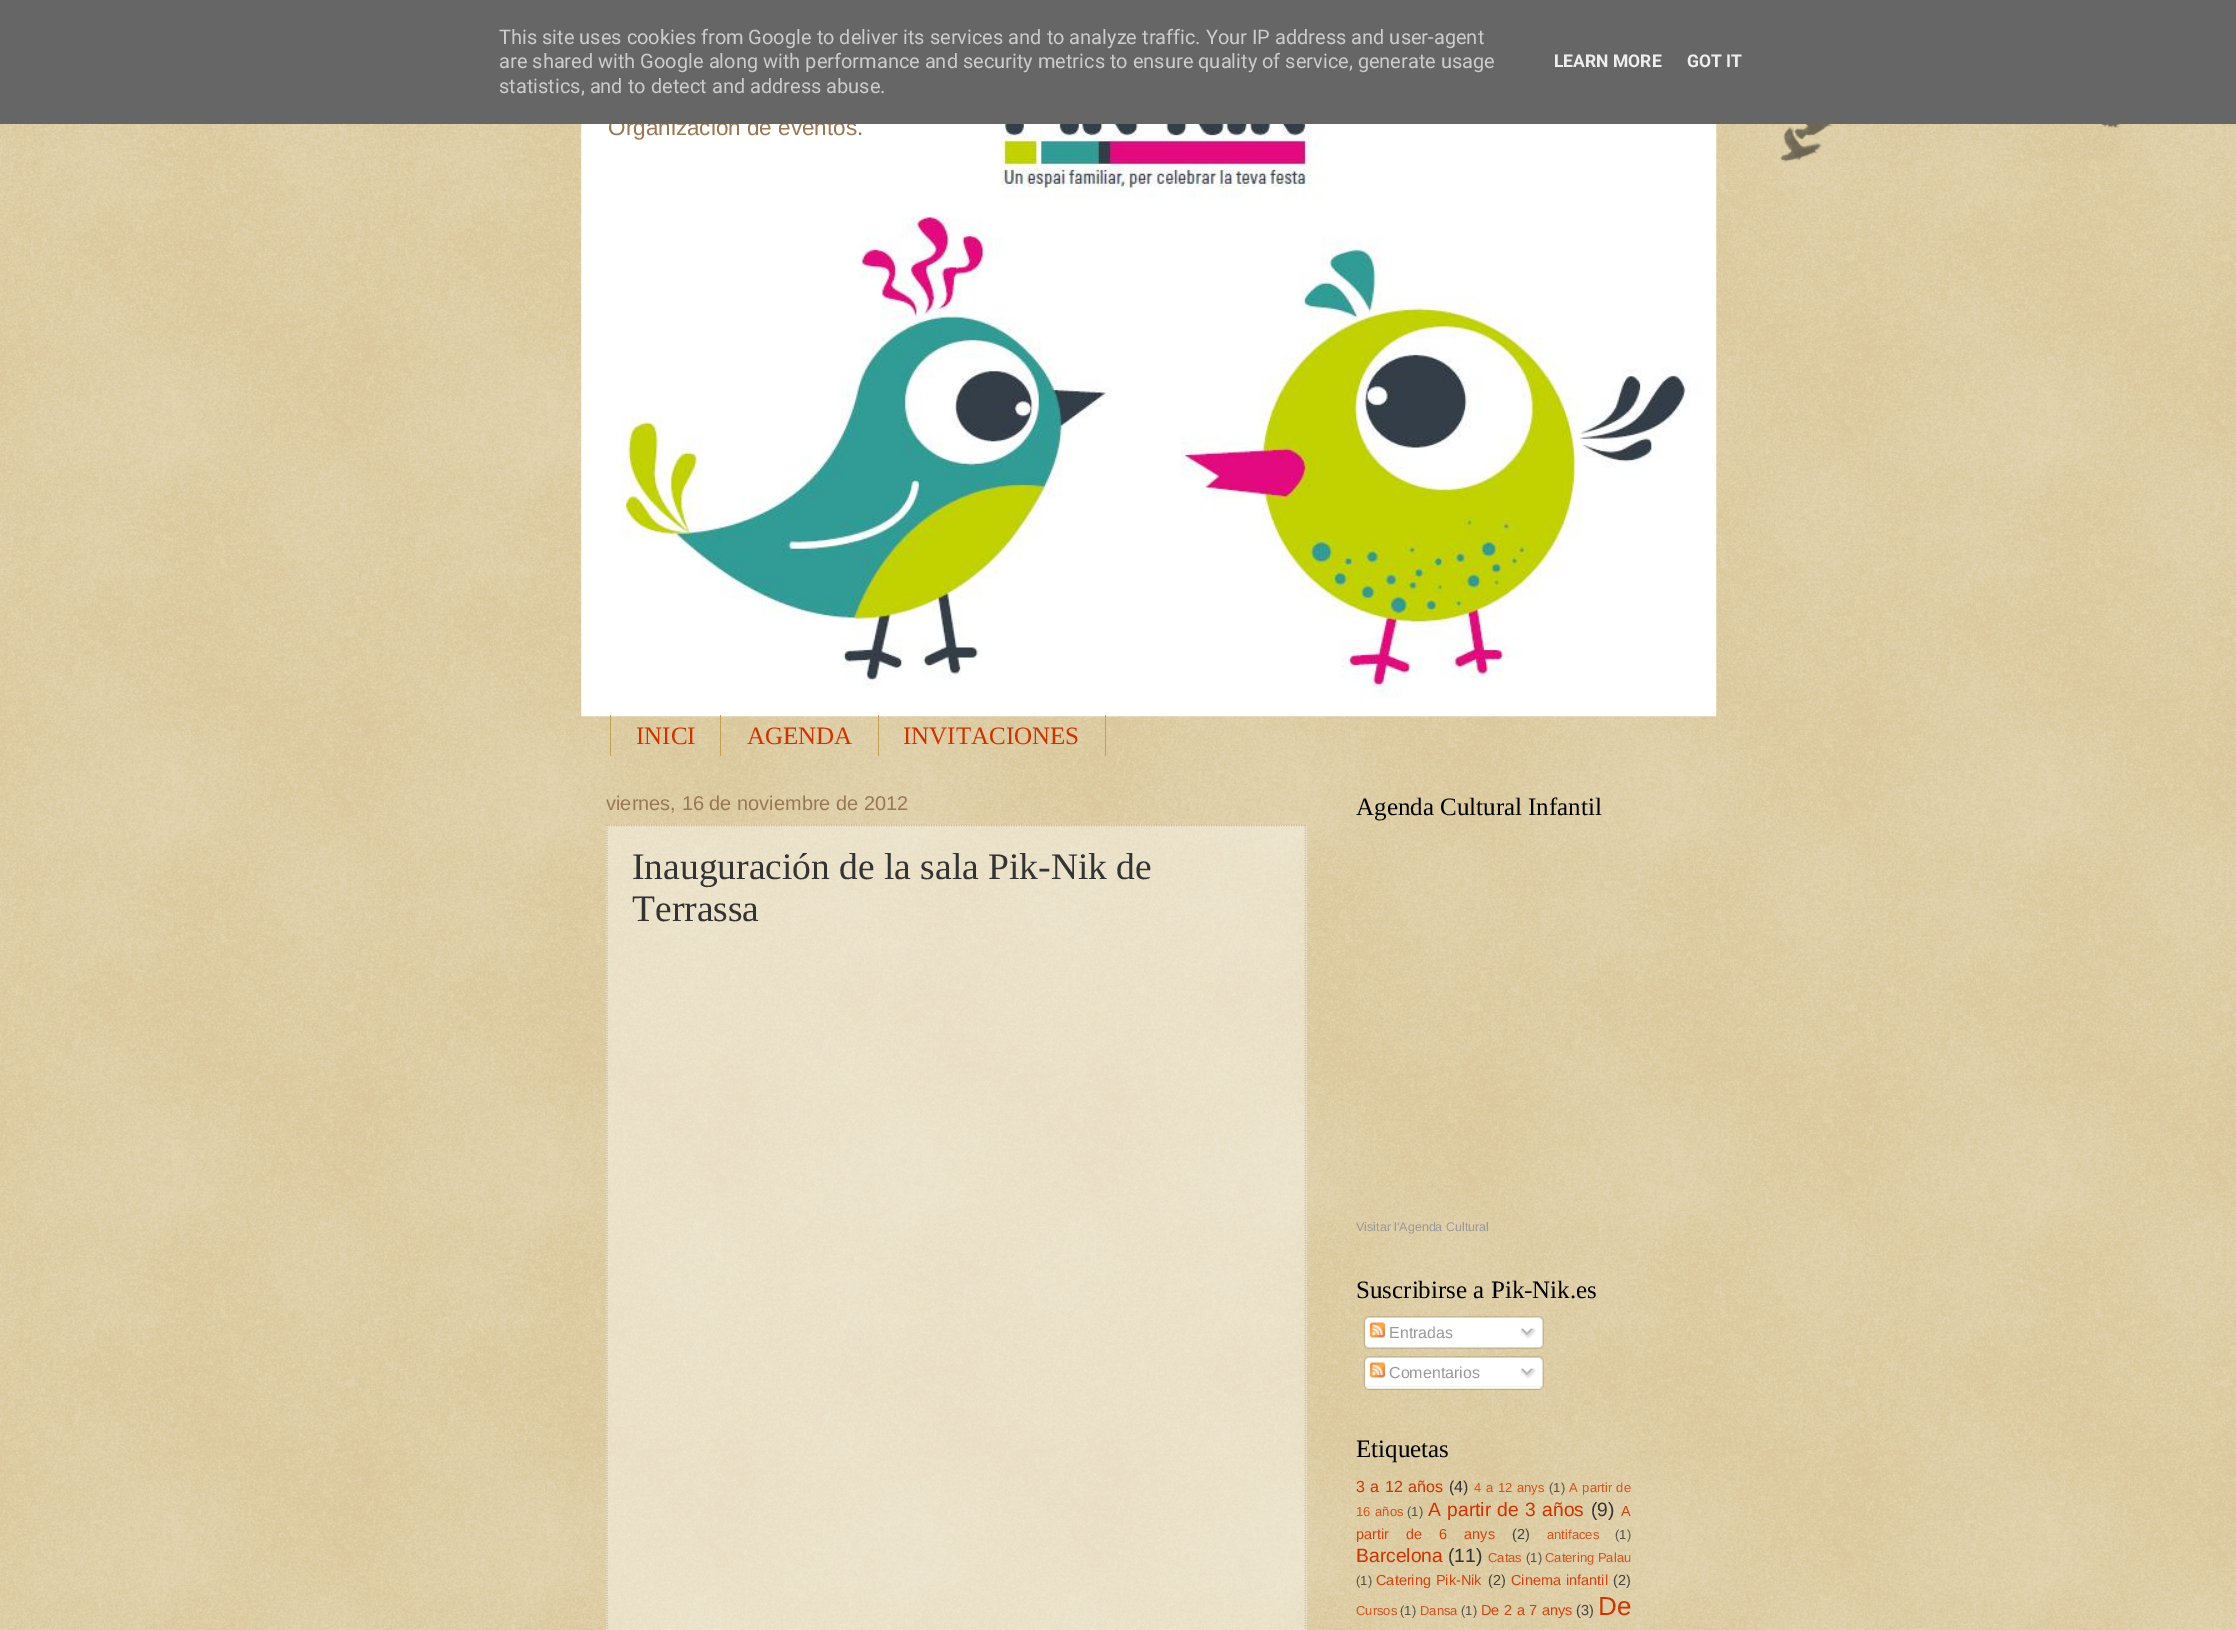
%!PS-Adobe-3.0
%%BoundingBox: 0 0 2236 1630
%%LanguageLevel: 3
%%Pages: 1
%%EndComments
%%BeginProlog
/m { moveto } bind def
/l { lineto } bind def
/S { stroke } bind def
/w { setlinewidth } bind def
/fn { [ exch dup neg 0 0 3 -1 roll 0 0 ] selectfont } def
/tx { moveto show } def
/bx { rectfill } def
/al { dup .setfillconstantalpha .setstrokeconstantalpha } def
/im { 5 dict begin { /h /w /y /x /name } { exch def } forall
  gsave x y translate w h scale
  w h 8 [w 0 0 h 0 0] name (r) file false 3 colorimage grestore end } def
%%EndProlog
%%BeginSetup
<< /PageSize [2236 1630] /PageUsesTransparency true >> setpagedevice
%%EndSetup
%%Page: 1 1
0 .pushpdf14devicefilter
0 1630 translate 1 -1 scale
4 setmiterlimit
0.753 0.631 0.329 setrgbcolor
0 0 2236 1630 bx
(image0.raw) 0 124 2236 1506 im
(image1.raw) 581 124 1136 593 im
/LiberationSans-Regular 22.5 fn
0.6 0.467 0.333 setrgbcolor
(Organización de eventos.) 608 135 tx
0.4 setgray
0 0 2236 124 bx
/Roboto-Regular 20 fn
0.8 setgray
(This site uses cookies from Google to deliver its services and to analyze traffic. Your IP address and user-agent) 499 44 tx
(are shared with Google along with performance and security metrics to ensure quality of service, generate usage) 499 68 tx
(statistics, and to detect and address abuse.) 499 93 tx
/Roboto-Bold 17.5 fn
0.933 setgray
(LEARN MORE) 1554 67 tx
(GOT IT) 1687 67 tx
0.753 0.631 0.329 setrgbcolor
720 715 1 41 bx
610 715 1 41 bx
/LiberationSerif-Regular 25 fn
0.8 0.2 0 setrgbcolor
(INICI) 636 744 tx
0.753 0.631 0.329 setrgbcolor
878 715 1 41 bx
0.8 0.2 0 setrgbcolor
(AGENDA) 747 744 tx
0.753 0.631 0.329 setrgbcolor
1105 715 1 41 bx
0.8 0.2 0 setrgbcolor
(INVITACIONES) 903 744 tx
/LiberationSans-Regular 20 fn
0.6 0.467 0.333 setrgbcolor
(viernes, 16 de noviembre de 2012) 606 810 tx
0.4 al
1 setgray
606 825 701 805 bx
1 al
0.8 0.733 0.6 setrgbcolor
1.2 w
[1.25 1.25] 0 setdash
606 825.5 m 1306 825.5 l S
1305.5 825 m 1305.5 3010 l S
607 825 m 607 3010 l S
/LiberationSerif-Regular 37.5 fn
0.2 setgray
(Inauguración de la sala Pik-Nik de) 632 879 tx
(Terrassa) 632 921 tx
/LiberationSerif-Regular 25 fn
0 setgray
(Agenda Cultural Infantil) 1356 815 tx
/LiberationSans-Regular 12.5 fn
0.6 setgray
(Visitar l'Agenda Cultural) 1356 1231 tx
/LiberationSerif-Regular 25 fn
0 setgray
(Suscribirse a Pik-Nik.es) 1356 1298 tx
(image2.raw) 1363 1316 181 29 im
(image3.raw) 1370 1322 15 16 im
/LiberationSans-Regular 16 fn
0.6 setgray
(Entradas) 1389 1338 tx
(image4.raw) 1520 1328 16 11 im
(image5.raw) 1364 1345 180 4 im
(image6.raw) 1363 1356 181 31 im
(image3.raw) 1370 1362 15 16 im
(Comentarios) 1389 1378 tx
(image4.raw) 1520 1368 16 11 im
(image7.raw) 1364 1386 180 4 im
/LiberationSerif-Regular 25 fn
0 setgray
(Etiquetas) 1356 1457 tx
/LiberationSans-Regular 16 fn
0.8 0.2 0 setrgbcolor
1356 1492 m 1 0 32 (3 a 12 años) widthshow
0.2 setgray
(\(4\)) 1449 1492 tx
/LiberationSans-Regular 13 fn
0.812 0.322 0.125 setrgbcolor
1474 1492 m 1 0 32 (4 a 12 anys) widthshow
0.333 0.322 0.29 setrgbcolor
(\(1\)) 1549 1492 tx
0.812 0.322 0.125 setrgbcolor
1569 1492 m 1 0 32 (A partir de) widthshow
1356 1516 m 1 0 32 (16 años) widthshow
0.333 0.322 0.29 setrgbcolor
(\(1\)) 1407 1516 tx
/LiberationSans-Regular 19.25 fn
0.8 0.2 0 setrgbcolor
1428 1516 m 1 0 32 (A partir de 3 años) widthshow
0.2 setgray
(\(9\)) 1591 1516 tx
/LiberationSans-Regular 14.5 fn
0.808 0.263 0.067 setrgbcolor
(A) 1621 1516 tx
1356 1539 m 13 0 32 (partir de 6 anys) widthshow
0.267 0.259 0.243 setrgbcolor
(\(2\)) 1512 1539 tx
/LiberationSans-Regular 13 fn
0.812 0.322 0.125 setrgbcolor
(antifaces) 1547 1539 tx
0.333 0.322 0.29 setrgbcolor
(\(1\)) 1615 1539 tx
/LiberationSans-Regular 19.25 fn
0.8 0.2 0 setrgbcolor
(Barcelona) 1356 1562 tx
0.2 setgray
(\(11\)) 1448 1562 tx
/LiberationSans-Regular 13 fn
0.812 0.322 0.125 setrgbcolor
(Catas) 1488 1562 tx
0.333 0.322 0.29 setrgbcolor
(\(1\)) 1526 1562 tx
0.812 0.322 0.125 setrgbcolor
(Catering Palau) 1545 1562 tx
0.333 0.322 0.29 setrgbcolor
(\(1\)) 1356 1585 tx
/LiberationSans-Regular 14.5 fn
0.808 0.263 0.067 setrgbcolor
1376 1585 m 1 0 32 (Catering Pik-Nik) widthshow
0.267 0.259 0.243 setrgbcolor
(\(2\)) 1488 1585 tx
0.808 0.263 0.067 setrgbcolor
1511 1585 m 1 0 32 (Cinema infantil) widthshow
0.267 0.259 0.243 setrgbcolor
(\(2\)) 1613 1585 tx
/LiberationSans-Regular 13 fn
0.812 0.322 0.125 setrgbcolor
(Cursos) 1356 1615 tx
0.333 0.322 0.29 setrgbcolor
(\(1\)) 1400 1615 tx
0.812 0.322 0.125 setrgbcolor
(Dansa) 1420 1615 tx
0.333 0.322 0.29 setrgbcolor
(\(1\)) 1461 1615 tx
/LiberationSans-Regular 14.5 fn
0.808 0.263 0.067 setrgbcolor
1481 1615 m 0.5 0 32 (De 2 a 7 anys) widthshow
0.267 0.259 0.243 setrgbcolor
(\(3\)) 1576 1615 tx
/LiberationSans-Regular 26 fn
0.8 0.2 0 setrgbcolor
(De) 1598 1615 tx
(image8.raw) 1780 124 340 38 im
.poppdf14devicefilter showpage
%%EOF
